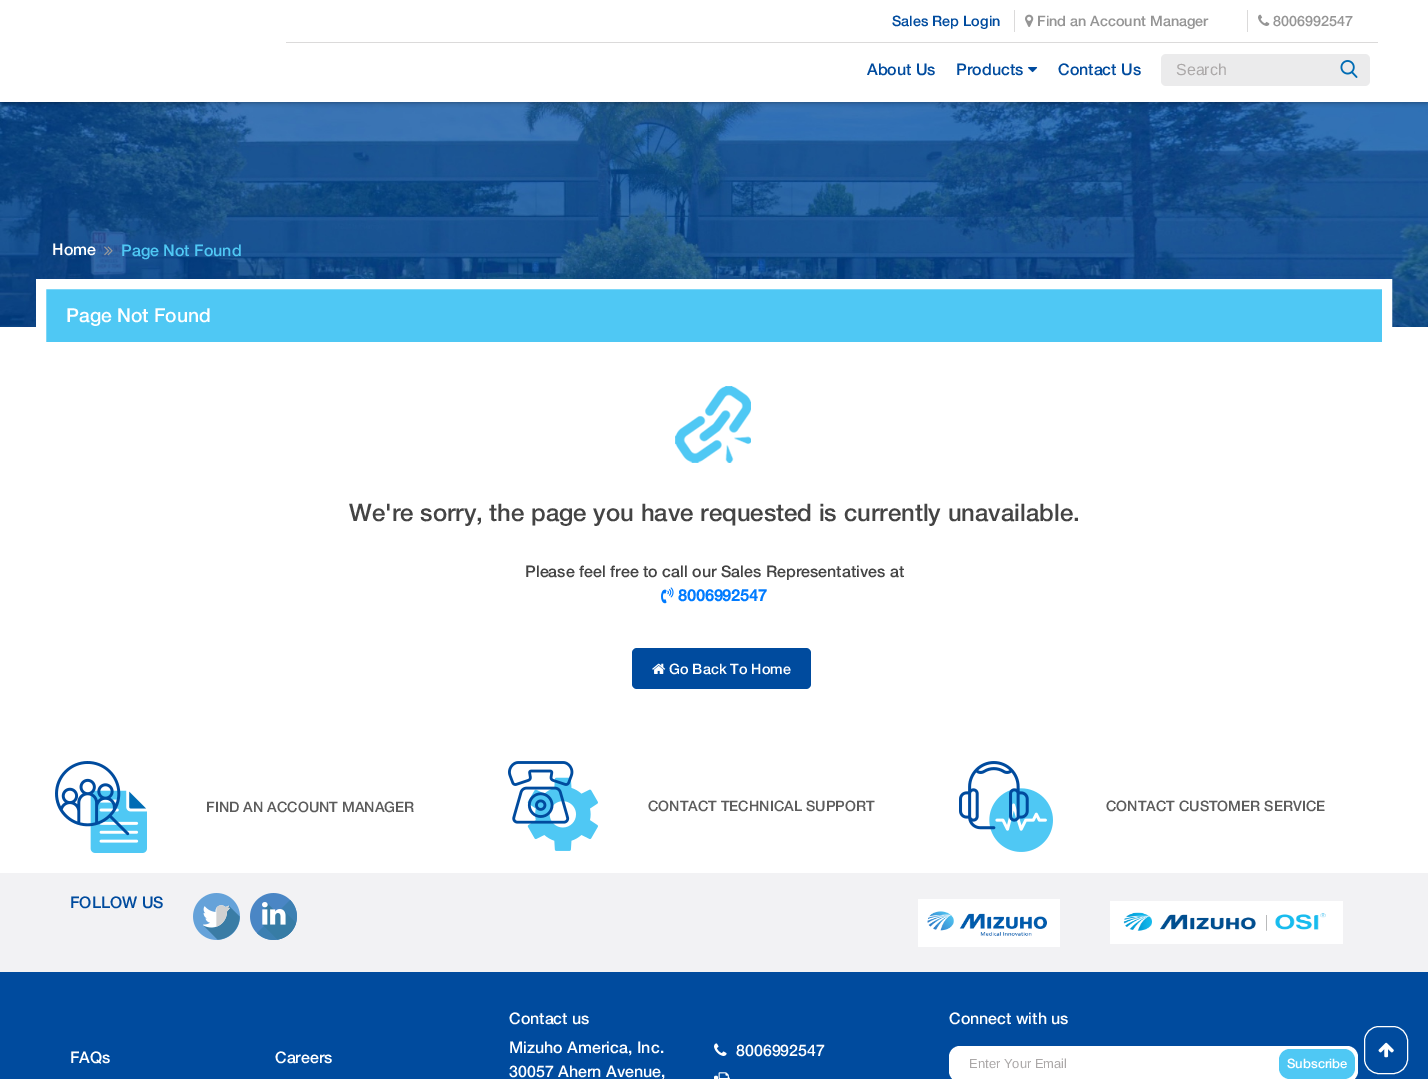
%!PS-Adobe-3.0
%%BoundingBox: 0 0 1428 1079
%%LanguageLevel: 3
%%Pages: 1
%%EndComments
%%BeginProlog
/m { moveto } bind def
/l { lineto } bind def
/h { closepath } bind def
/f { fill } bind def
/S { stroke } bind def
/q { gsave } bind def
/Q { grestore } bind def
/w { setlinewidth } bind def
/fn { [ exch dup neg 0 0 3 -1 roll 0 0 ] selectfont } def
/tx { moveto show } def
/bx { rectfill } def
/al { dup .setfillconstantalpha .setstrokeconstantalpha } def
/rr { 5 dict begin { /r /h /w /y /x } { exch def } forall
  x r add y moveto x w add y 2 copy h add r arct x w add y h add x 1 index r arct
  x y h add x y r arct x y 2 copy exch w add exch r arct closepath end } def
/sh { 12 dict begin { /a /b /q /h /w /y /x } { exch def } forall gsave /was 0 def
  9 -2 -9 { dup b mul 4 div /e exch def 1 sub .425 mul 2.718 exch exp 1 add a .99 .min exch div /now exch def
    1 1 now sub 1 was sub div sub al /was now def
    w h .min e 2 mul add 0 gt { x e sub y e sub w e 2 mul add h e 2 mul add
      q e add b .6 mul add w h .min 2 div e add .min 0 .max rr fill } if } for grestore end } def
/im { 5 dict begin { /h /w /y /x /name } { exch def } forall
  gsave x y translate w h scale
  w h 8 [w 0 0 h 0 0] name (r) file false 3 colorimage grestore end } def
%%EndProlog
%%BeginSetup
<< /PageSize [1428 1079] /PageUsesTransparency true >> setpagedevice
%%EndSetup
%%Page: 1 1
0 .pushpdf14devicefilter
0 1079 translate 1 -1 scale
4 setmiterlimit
1 setgray
0 0 1428 1079 bx
(image4.raw) 0 102 1428 225 im
0 setgray
1 2 1426 100 0 2.5 0.44 sh
1 setgray
0 0 1428 102 bx
/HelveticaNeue-Medium 14.4 fn
0 0.294 0.62 setrgbcolor
(Sales Rep Login) 892 26 tx
0.859 0.855 0.855 setrgbcolor
1014 10 1 22 bx
(image0.raw) 1025 14 9 13 im
0.584 setgray
(Find an Account Manager) 1037 26 tx
0.859 0.855 0.855 setrgbcolor
1247 10 1 22 bx
(image1.raw) 1258 14 12 12 im
0.584 setgray
(8006992547) 1273 26 tx
0.859 0.855 0.855 setrgbcolor
286 42 1092 1 bx
/HelveticaNeue-Medium 16 fn
0 0.294 0.62 setrgbcolor
(About Us) 867 75 tx
(Products) 956 75 tx
(image2.raw) 1028 67 10 6 im
(Contact Us) 1058 75 tx
0.922 0.922 0.925 setrgbcolor
1161 54 209 32 5 rr f
/LiberationSans-Regular 16 fn
0.671 0.659 0.659 setrgbcolor
(Search) 1176 75 tx
(image3.raw) 1340 60 18 18 im
/HelveticaNeue-Medium 16 fn
1 setgray
(Home) 52 255 tx
(image5.raw) 104 246 9 10 im
0.31 0.784 0.957 setrgbcolor
(Page Not Found) 121 256 tx
41 284 m 1387 284 l 1387 347 l 41 347 l h q f Q
1 setgray
10 w
S
/HelveticaNeue-Medium 19.25 fn
(Page Not Found) 66 322 tx
(image6.raw) 675 386 76 77 im
/HelveticaNeue-Medium 24 fn
0.267 setgray
(We're sorry, the page you have requested is currently unavailable.) 349 521 tx
/HelveticaNeue-Medium 16 fn
(Please feel free to call our Sales Representatives at) 525 577 tx
(image7.raw) 661 587 13 17 im
/HelveticaNeue-Bold 16 fn
0 0.482 1 setrgbcolor
(8006992547) 678 601 tx
0 0.294 0.62 setrgbcolor
632 648 179 41 5 rr f
(image8.raw) 652 663 14 11 im
/HelveticaNeue-Medium 14.4 fn
1 setgray
(Go Back To Home) 669 674 tx
(image9.raw) 55 761 92 92 im
0.361 setgray
(FIND AN ACCOUNT MANAGER) 206 812 tx
(image10.raw) 508 761 90 90 im
(CONTACT TECHNICAL SUPPORT) 648 811 tx
(image11.raw) 959 761 94 91 im
(CONTACT CUSTOMER SERVICE) 1106 811 tx
0.949 0.949 0.957 setrgbcolor
0 873 1428 99 bx
/HelveticaNeue-Medium 16 fn
0 0.294 0.62 setrgbcolor
(FOLLOW US) 70 908 tx
(image12.raw) 193 893 47 47 im
(image13.raw) 250 893 47 47 im
(image14.raw) 918 899 142 48 im
(image15.raw) 1110 901 233 43 im
0 972 1428 107 bx
1 setgray
(FAQs) 70 1063 tx
(Careers) 275 1063 tx
(Contact us) 509 1024 tx
(Mizuho America, Inc.) 509 1053 tx
(30057 Ahern Avenue,) 509 1077 tx
(image16.raw) 714 1043 13 13 im
(8006992547) 736 1056 tx
(image17.raw) 714 1072 16 7 im
(Connect with us) 949 1024 tx
949 1046 409 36 11 rr f
/LiberationSans-Regular 13 fn
0.671 0.659 0.659 setrgbcolor
(Enter Your Email) 969 1068 tx
0.31 0.784 0.957 setrgbcolor
1279 1049 76 30 11 rr f
/HelveticaNeue-Medium 13 fn
1 setgray
(Subscribe) 1287 1068 tx
1 w
1364.5 1026.5 43 47 14.5 rr S
(image18.raw) 1378 1042 16 16 im
.poppdf14devicefilter showpage
%%EOF
